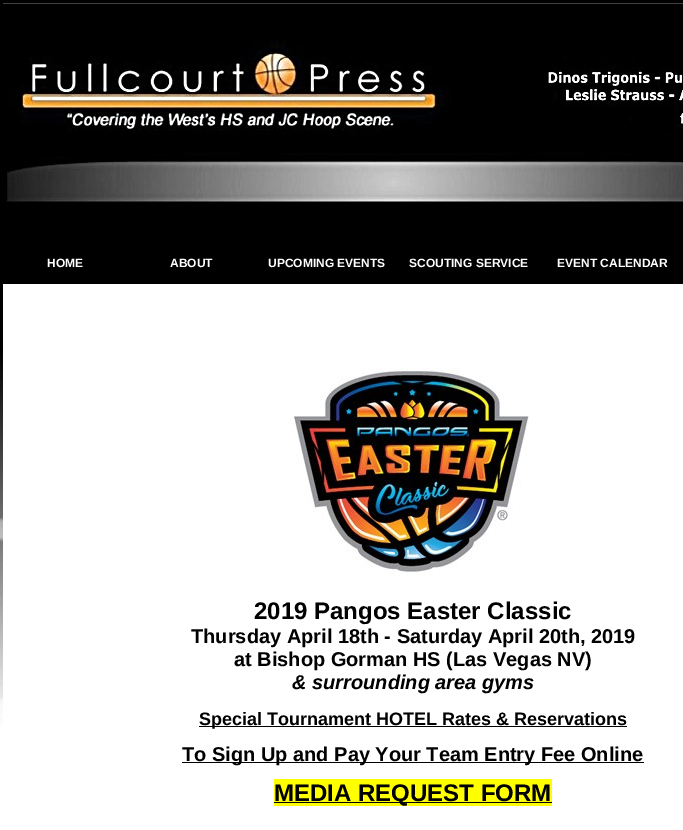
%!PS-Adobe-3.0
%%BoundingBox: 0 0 683 830
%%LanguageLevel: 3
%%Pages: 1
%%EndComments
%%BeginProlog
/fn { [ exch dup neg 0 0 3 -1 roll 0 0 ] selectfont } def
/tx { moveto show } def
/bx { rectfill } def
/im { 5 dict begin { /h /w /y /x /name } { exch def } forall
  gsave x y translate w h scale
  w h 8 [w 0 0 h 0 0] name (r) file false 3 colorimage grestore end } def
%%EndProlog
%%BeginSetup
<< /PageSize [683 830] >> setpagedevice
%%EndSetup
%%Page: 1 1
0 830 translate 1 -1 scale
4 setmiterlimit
1 setgray
0 0 683 830 bx
(image0.raw) 0 0 683 830 im
(image1.raw) 3 3 680 199 im
/LiberationSans-Bold 12 fn
(HOME) 47 267 tx
(ABOUT) 170 267 tx
(UPCOMING EVENTS) 268 267 tx
(SCOUTING SERVICE) 409 267 tx
(EVENT CALENDAR) 557 267 tx
3 284 680 546 bx
(image2.raw) 293 368 236 208 im
/LiberationSans-Bold 24 fn
0 setgray
(2019 Pangos Easter Classic) 254 619 tx
/LiberationSans-Bold 20 fn
(Thursday April 18th - Saturday April 20th, 2019) 191 643 tx
(at Bishop Gorman HS \(Las Vegas NV\)) 234 666 tx
/LiberationSans-BoldItalic 20 fn
(& surrounding area gyms) 292 689 tx
199 726 428 1 bx
/LiberationSans-Bold 18 fn
(Special Tournament HOTEL Rates & Reservations) 199 725 tx
182 762 462 1 bx
/LiberationSans-Bold 20 fn
(To Sign Up and Pay Your Team Entry Fee Online) 182 761 tx
1 1 0 setrgbcolor
274 779 278 27 bx
0 setgray
274 802 278 1 bx
/LiberationSans-Bold 24 fn
(MEDIA REQUEST FORM) 274 801 tx
showpage
%%EOF
